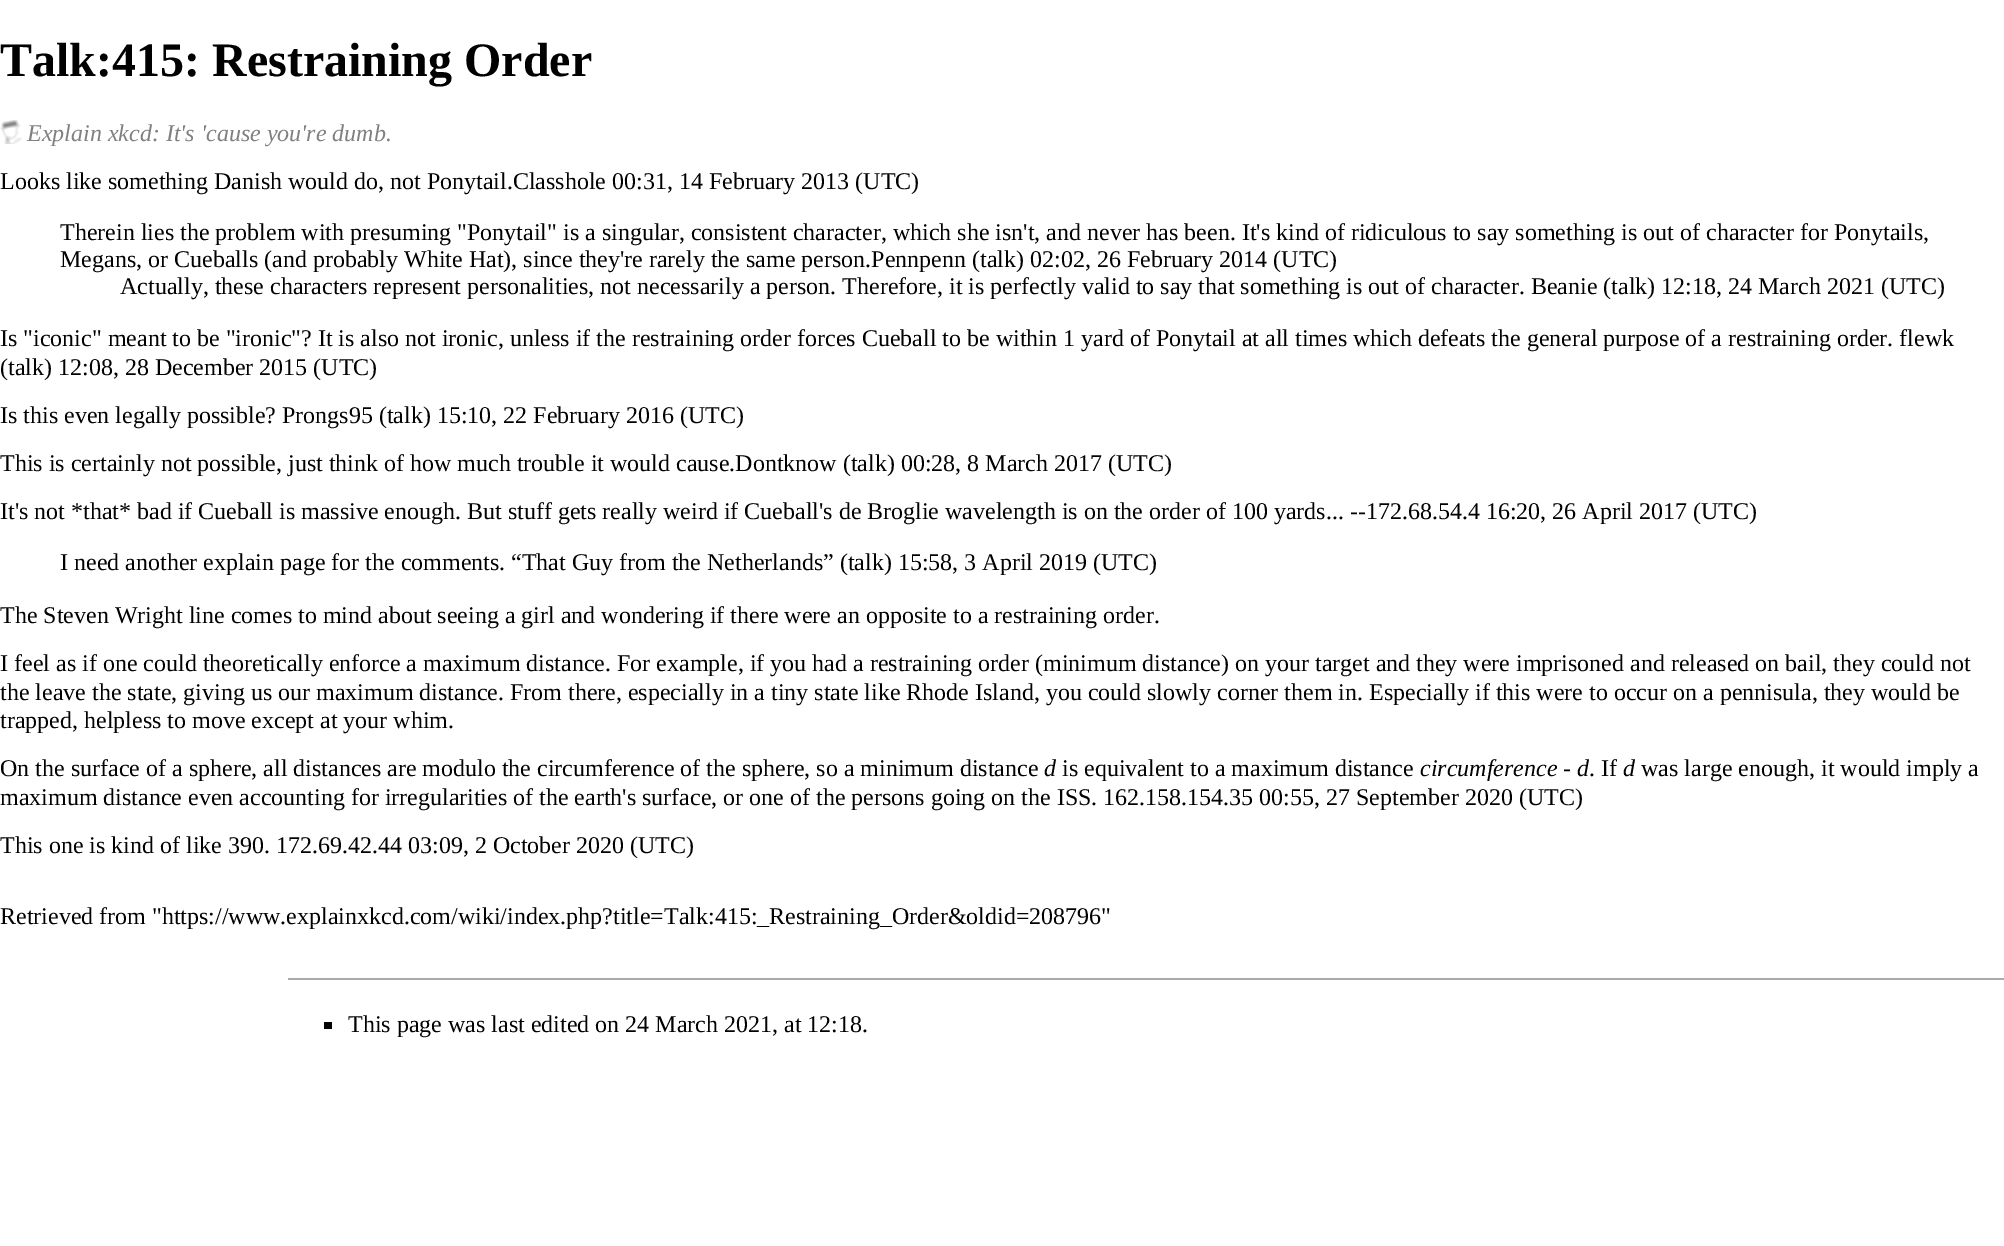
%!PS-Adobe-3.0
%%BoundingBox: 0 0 2004 1246
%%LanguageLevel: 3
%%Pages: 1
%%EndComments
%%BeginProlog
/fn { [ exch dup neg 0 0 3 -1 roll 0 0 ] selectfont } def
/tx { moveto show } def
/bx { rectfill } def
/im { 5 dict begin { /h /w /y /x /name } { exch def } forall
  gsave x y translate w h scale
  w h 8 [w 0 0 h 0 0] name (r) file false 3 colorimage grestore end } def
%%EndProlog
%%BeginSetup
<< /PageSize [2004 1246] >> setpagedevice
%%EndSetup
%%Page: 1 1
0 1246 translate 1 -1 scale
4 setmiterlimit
1 setgray
0 0 2004 1246 bx
/LiberationSerif-Bold 48 fn
0 setgray
(Talk:415: Restraining Order) 0 76 tx
(image0.raw) 0 120 23 24 im
/LiberationSerif-Italic 24 fn
0.502 setgray
(Explain xkcd: It's 'cause you're dumb.) 27 141 tx
/LiberationSerif-Regular 24 fn
0 setgray
(Looks like something Danish would do, not Ponytail.Classhole 00:31, 14 February 2013 \(UTC\)) 0 189 tx
(Therein lies the problem with presuming "Ponytail" is a singular, consistent character, which she isn't, and never has been. It's kind of ridiculous to say something is out of character for Ponytails,) 60 240 tx
(Megans, or Cueballs \(and probably White Hat\), since they're rarely the same person.Pennpenn \(talk\) 02:02, 26 February 2014 \(UTC\)) 60 267 tx
(Actually, these characters represent personalities, not necessarily a person. Therefore, it is perfectly valid to say that something is out of character. Beanie \(talk\) 12:18, 24 March 2021 \(UTC\)) 120 294 tx
(Is "iconic" meant to be "ironic"? It is also not ironic, unless if the restraining order forces Cueball to be within 1 yard of Ponytail at all times which defeats the general purpose of a restraining order. flewk) 0 346 tx
(\(talk\) 12:08, 28 December 2015 \(UTC\)) 0 375 tx
(Is this even legally possible? Prongs95 \(talk\) 15:10, 22 February 2016 \(UTC\)) 0 423 tx
(This is certainly not possible, just think of how much trouble it would cause.Dontknow \(talk\) 00:28, 8 March 2017 \(UTC\)) 0 471 tx
(It's not *that* bad if Cueball is massive enough. But stuff gets really weird if Cueball's de Broglie wavelength is on the order of 100 yards... --172.68.54.4 16:20, 26 April 2017 \(UTC\)) 0 519 tx
(I need another explain page for the comments. “That Guy from the Netherlands” \(talk\) 15:58, 3 April 2019 \(UTC\)) 60 570 tx
(The Steven Wright line comes to mind about seeing a girl and wondering if there were an opposite to a restraining order.) 0 623 tx
(I feel as if one could theoretically enforce a maximum distance. For example, if you had a restraining order \(minimum distance\) on your target and they were imprisoned and released on bail, they could not) 0 671 tx
(the leave the state, giving us our maximum distance. From there, especially in a tiny state like Rhode Island, you could slowly corner them in. Especially if this were to occur on a pennisula, they would be) 0 700 tx
(trapped, helpless to move except at your whim.) 0 728 tx
(On the surface of a sphere, all distances are modulo the circumference of the sphere, so a minimum distance) 0 776 tx
/LiberationSerif-Italic 24 fn
(d) 1044 776 tx
/LiberationSerif-Regular 24 fn
(is equivalent to a maximum distance) 1062 776 tx
/LiberationSerif-Italic 24 fn
(circumference - d) 1420 776 tx
/LiberationSerif-Regular 24 fn
(. If) 1589 776 tx
/LiberationSerif-Italic 24 fn
(d) 1623 776 tx
/LiberationSerif-Regular 24 fn
(was large enough, it would imply a) 1641 776 tx
(maximum distance even accounting for irregularities of the earth's surface, or one of the persons going on the ISS. 162.158.154.35 00:55, 27 September 2020 \(UTC\)) 0 805 tx
(This one is kind of like 390. 172.69.42.44 03:09, 2 October 2020 \(UTC\)) 0 853 tx
(Retrieved from "https://www.explainxkcd.com/wiki/index.php?title=Talk:415:_Restraining_Order&oldid=208796") 0 924 tx
0.667 setgray
288 978 1716 2 bx
0 setgray
324 1022 8 7 bx
(This page was last edited on 24 March 2021, at 12:18.) 348 1032 tx
showpage
%%EOF
